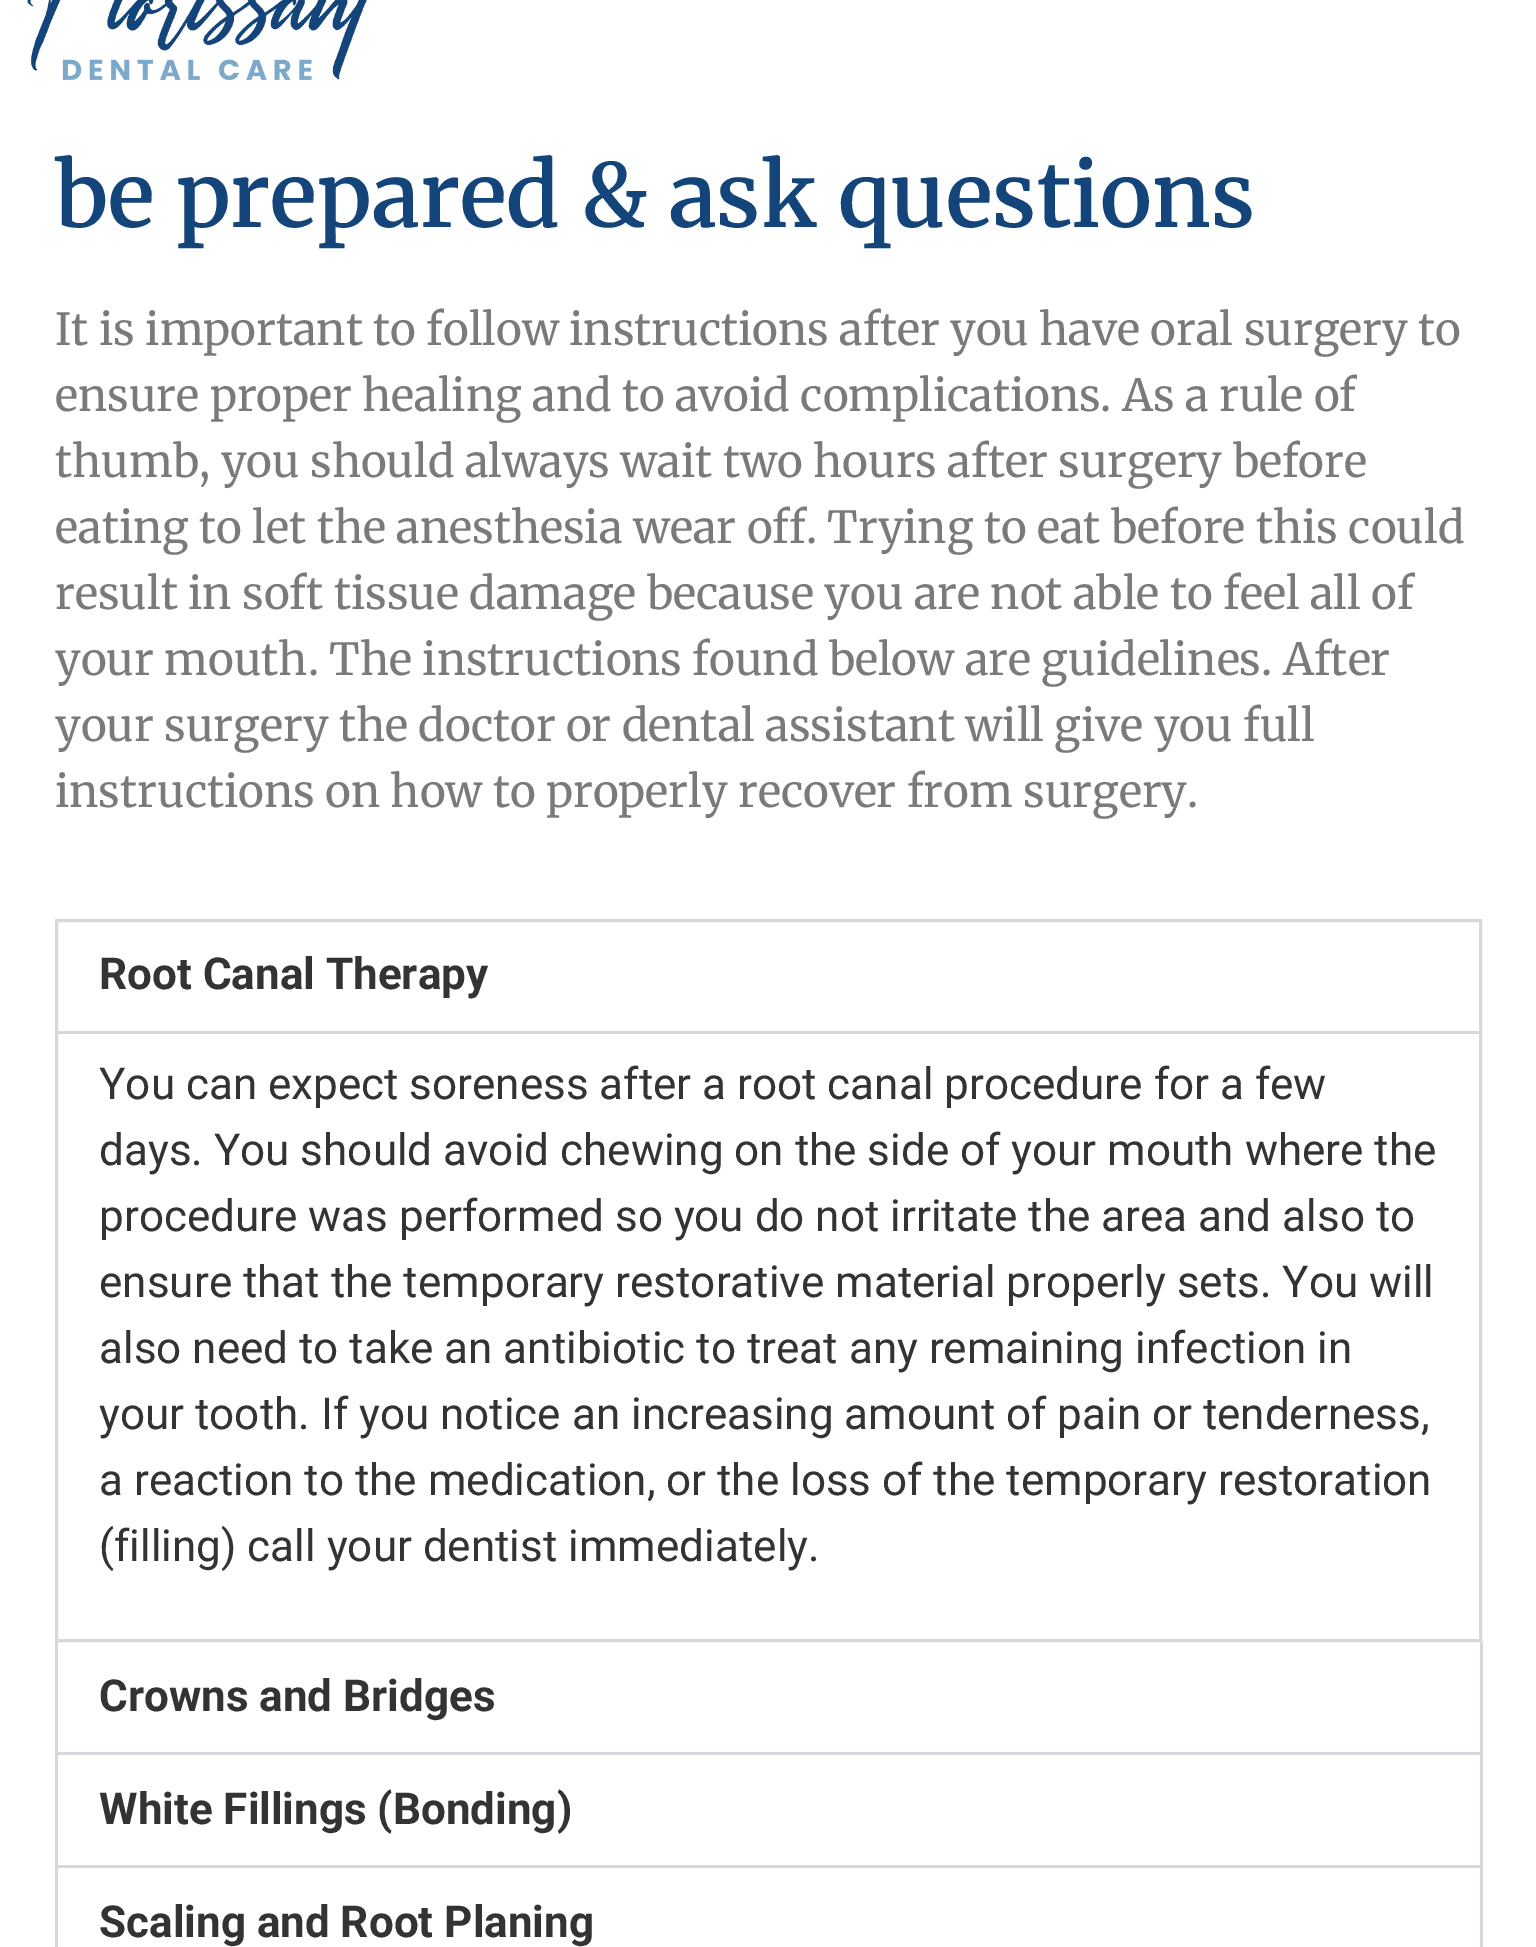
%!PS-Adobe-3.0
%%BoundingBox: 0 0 1536 1947
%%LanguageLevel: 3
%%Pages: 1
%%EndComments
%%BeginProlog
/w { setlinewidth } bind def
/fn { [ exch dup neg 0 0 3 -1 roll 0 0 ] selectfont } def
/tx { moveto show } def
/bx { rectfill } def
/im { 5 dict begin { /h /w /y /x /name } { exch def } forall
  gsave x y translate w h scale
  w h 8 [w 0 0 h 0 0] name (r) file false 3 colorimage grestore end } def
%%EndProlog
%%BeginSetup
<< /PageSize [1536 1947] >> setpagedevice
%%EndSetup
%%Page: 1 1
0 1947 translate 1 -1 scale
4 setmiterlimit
1 setgray
0 0 1536 1947 bx
(image0.raw) 27 0 340 80 im
/Merriweather-SemiBold 88 fn
0.075 0.271 0.478 setrgbcolor
(be prepared & ask questions) 55 227 tx
/Merriweather-Regular 44 fn
0.478 setgray
(It is important to follow instructions after you have oral surgery to) 55 345 tx
(ensure proper healing and to avoid complications. As a rule of) 55 411 tx
(thumb, you should always wait two hours after surgery before) 55 477 tx
(eating to let the anesthesia wear off. Trying to eat before this could) 55 543 tx
(result in soft tissue damage because you are not able to feel all of) 55 609 tx
(your mouth. The instructions found below are guidelines. After) 55 675 tx
(your surgery the doctor or dental assistant will give you full) 55 741 tx
(instructions on how to properly recover from surgery.) 55 807 tx
0.835 0.847 0.863 setrgbcolor
3 w
56.5 920.5 1424 720 rectstroke
/Roboto-Bold 44 fn
0.2 setgray
(Root Canal Therapy) 99 989 tx
0.835 0.847 0.863 setrgbcolor
58 1031 1422 3 bx
/Roboto-Regular 44 fn
0.2 setgray
(You can expect soreness after a root canal procedure for a few) 99 1099 tx
(days. You should avoid chewing on the side of your mouth where the) 99 1165 tx
(procedure was performed so you do not irritate the area and also to) 99 1231 tx
(ensure that the temporary restorative material properly sets. You will) 99 1297 tx
(also need to take an antibiotic to treat any remaining infection in) 99 1363 tx
(your tooth. If you notice an increasing amount of pain or tenderness,) 99 1429 tx
(a reaction to the medication, or the loss of the temporary restoration) 99 1495 tx
(\(filling\) call your dentist immediately.) 99 1561 tx
0.835 0.847 0.863 setrgbcolor
1480 1642 3 225 bx
55 1752 1427 3 bx
55 1642 3 113 bx
/Roboto-Bold 44 fn
0.2 setgray
(Crowns and Bridges) 99 1711 tx
0.835 0.847 0.863 setrgbcolor
55 1865 1427 3 bx
55 1755 3 192 bx
0.2 setgray
(White Fillings \(Bonding\)) 99 1824 tx
0.835 0.847 0.863 setrgbcolor
1480 1867 3 80 bx
0.2 setgray
(Scaling and Root Planing) 99 1937 tx
showpage
%%EOF
